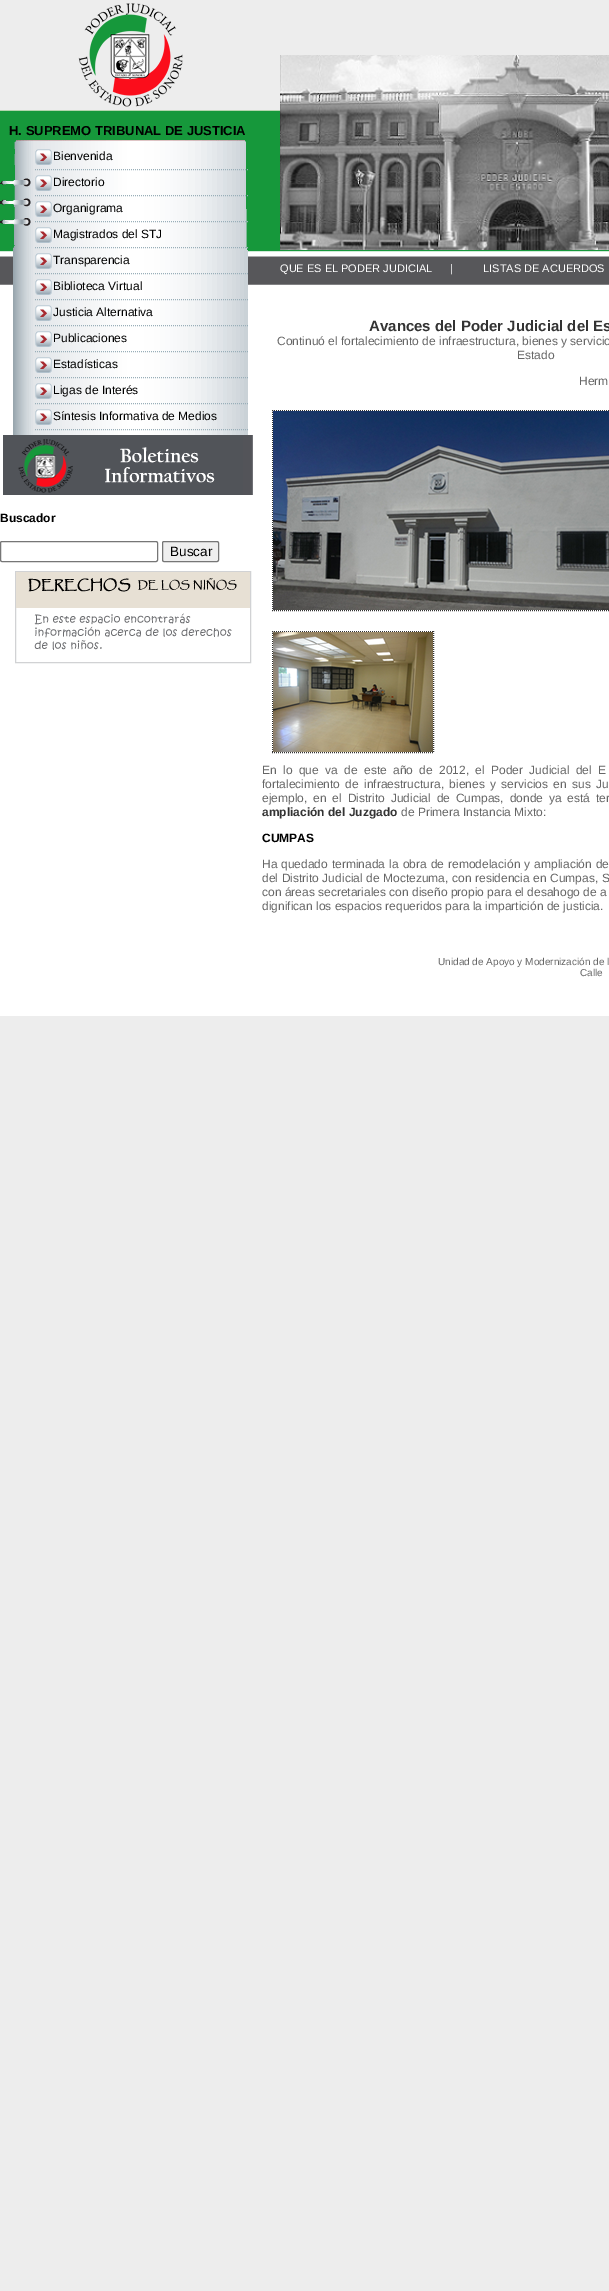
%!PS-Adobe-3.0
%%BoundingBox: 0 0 609 2291
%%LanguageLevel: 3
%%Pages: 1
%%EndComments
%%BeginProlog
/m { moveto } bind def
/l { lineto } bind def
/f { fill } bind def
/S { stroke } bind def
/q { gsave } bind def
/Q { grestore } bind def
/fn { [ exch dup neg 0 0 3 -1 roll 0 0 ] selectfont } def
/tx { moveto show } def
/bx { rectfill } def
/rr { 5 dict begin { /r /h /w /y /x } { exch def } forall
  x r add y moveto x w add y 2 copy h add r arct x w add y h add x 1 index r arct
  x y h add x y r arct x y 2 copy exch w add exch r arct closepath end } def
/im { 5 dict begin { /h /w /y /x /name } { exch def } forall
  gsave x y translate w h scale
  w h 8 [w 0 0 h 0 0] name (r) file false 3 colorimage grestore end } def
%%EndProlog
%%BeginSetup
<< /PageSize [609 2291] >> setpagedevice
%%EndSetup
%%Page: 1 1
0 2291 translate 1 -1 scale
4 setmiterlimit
0.929 setgray
0 0 609 2291 bx
1 setgray
0 285 609 731 bx
(image0.raw) 0 0 609 285 im
(image1.raw) 78 3 105 104 im
/LiberationSans-Bold 13 fn
0 setgray
(H. SUPREMO TRIBUNAL DE JUSTICIA) 9 135 tx
(image2.raw) 0 140 248 295 im
(image3.raw) 35 149 17 16 im
0.6 0.686 0.725 setrgbcolor
[1 1] 0 setdash
35 169.5 m 248 169.5 l S
/LiberationSans-Regular 12 fn
0 setgray
(Bienvenida) 53 160 tx
(image3.raw) 35 175 17 16 im
0.6 0.686 0.725 setrgbcolor
35 195.5 m 248 195.5 l S
0 setgray
(Directorio) 53 186 tx
(image3.raw) 35 201 17 16 im
0.6 0.686 0.725 setrgbcolor
35 221.5 m 248 221.5 l S
0 setgray
(Organigrama) 53 212 tx
(image3.raw) 35 227 17 16 im
0.6 0.686 0.725 setrgbcolor
35 247.5 m 248 247.5 l S
0 setgray
(Magistrados del STJ) 53 238 tx
(image3.raw) 35 253 17 16 im
0.6 0.686 0.725 setrgbcolor
35 273.5 m 248 273.5 l S
0 setgray
(Transparencia) 53 264 tx
(image3.raw) 35 279 17 16 im
0.6 0.686 0.725 setrgbcolor
35 299.5 m 248 299.5 l S
0 setgray
(Biblioteca Virtual) 53 290 tx
(image3.raw) 35 305 17 16 im
0.6 0.686 0.725 setrgbcolor
35 325.5 m 248 325.5 l S
0 setgray
(Justicia Alternativa) 53 316 tx
(image3.raw) 35 331 17 16 im
0.6 0.686 0.725 setrgbcolor
35 351.5 m 248 351.5 l S
0 setgray
(Publicaciones) 53 342 tx
(image3.raw) 35 357 17 16 im
0.6 0.686 0.725 setrgbcolor
35 377.5 m 248 377.5 l S
0 setgray
(Estadísticas) 53 368 tx
(image3.raw) 35 383 17 16 im
0.6 0.686 0.725 setrgbcolor
35 403.5 m 248 403.5 l S
0 setgray
(Ligas de Interés) 53 394 tx
(image3.raw) 35 409 17 16 im
0.6 0.686 0.725 setrgbcolor
35 429.5 m 248 429.5 l S
0 setgray
(Síntesis Informativa de Medios) 53 420 tx
(image4.raw) 3 435 250 60 im
/LiberationSans-Bold 12 fn
(Buscador) 0 522 tx
0.463 setgray
[] 0 setdash
0.5 541.5 157 20 1.5 rr S
0.937 setgray
162.5 541.5 56 20 1.5 rr q f Q
0.463 setgray
S
/LiberationSans-Regular 13.5 fn
0 setgray
(Buscar) 170 556 tx
0.82 0.824 0.831 setrgbcolor
15.5 571.5 235 91 rectstroke
0.906 0.878 0.831 setrgbcolor
16 572 234 36 bx
(image5.raw) 28 578 209 14 im
(image6.raw) 34 613 198 37 im
(image7.raw) 280 55 329 195 im
/LiberationSans-Regular 11 fn
1 setgray
(QUE ES EL PODER JUDICIAL) 280 272 tx
(|) 450 272 tx
(LISTAS DE ACUERDOS) 483 272 tx
/LiberationSans-Bold 15 fn
0.2 setgray
(Avances del Poder Judicial del Es) 369 331 tx
/LiberationSans-Regular 12 fn
0.4 setgray
(Continuó el fortalecimiento de infraestructura, bienes y servicio) 277 345 tx
(Estado) 517 359 tx
(Herm) 579 385 tx
0.2 setgray
[1 1] 0 setdash
272 410.5 m 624 410.5 l S
272 610.5 m 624 610.5 l S
272.5 410 m 272.5 611 l S
(image8.raw) 273 411 336 199 im
272 631.5 m 434 631.5 l S
272.5 631 m 272.5 753 l S
(image9.raw) 273 632 160 120 im
433.5 631 m 433.5 753 l S
272 752.5 m 434 752.5 l S
0.4 setgray
262 774 m 3 0 32 (En lo que va de) widthshow
364 774 m 3 0 32 (este año de 2012, el Poder Judicial del E) widthshow
262 788 m 2 0 32 (fortalecimiento de infraestructura, bienes y servicios en sus Ju) widthshow
262 802 m 2.5 0 32 (ejemplo, en el Distrito Judicial de Cumpas, donde ya) widthshow
567 802 m 2.5 0 32 (está ter) widthshow
/LiberationSans-Bold 12 fn
0.2 setgray
(ampliación del Juzgado) 262 816 tx
/LiberationSans-Regular 12 fn
0.4 setgray
(de Primera Instancia Mixto:) 401 816 tx
/LiberationSans-Bold 12 fn
0 setgray
(CUMPAS) 262 842 tx
/LiberationSans-Regular 12 fn
0.4 setgray
(Ha) 262 868 tx
281 868 m 0.75 0 32 (quedado terminada la obra de remodelación y ampliación de) widthshow
262 882 m 0.25 0 32 (del Distrito Judicial de Moctezuma, con residencia en Cumpas, S) widthshow
(con áreas secretariales con diseño propio para el desahogo de a) 262 896 tx
(dignifican los espacios requeridos para la impartición de justicia.) 262 910 tx
/LiberationSans-Regular 10 fn
(Unidad de Apoyo y Modernización de l) 438 965 tx
(Calle) 580 976 tx
showpage
%%EOF
